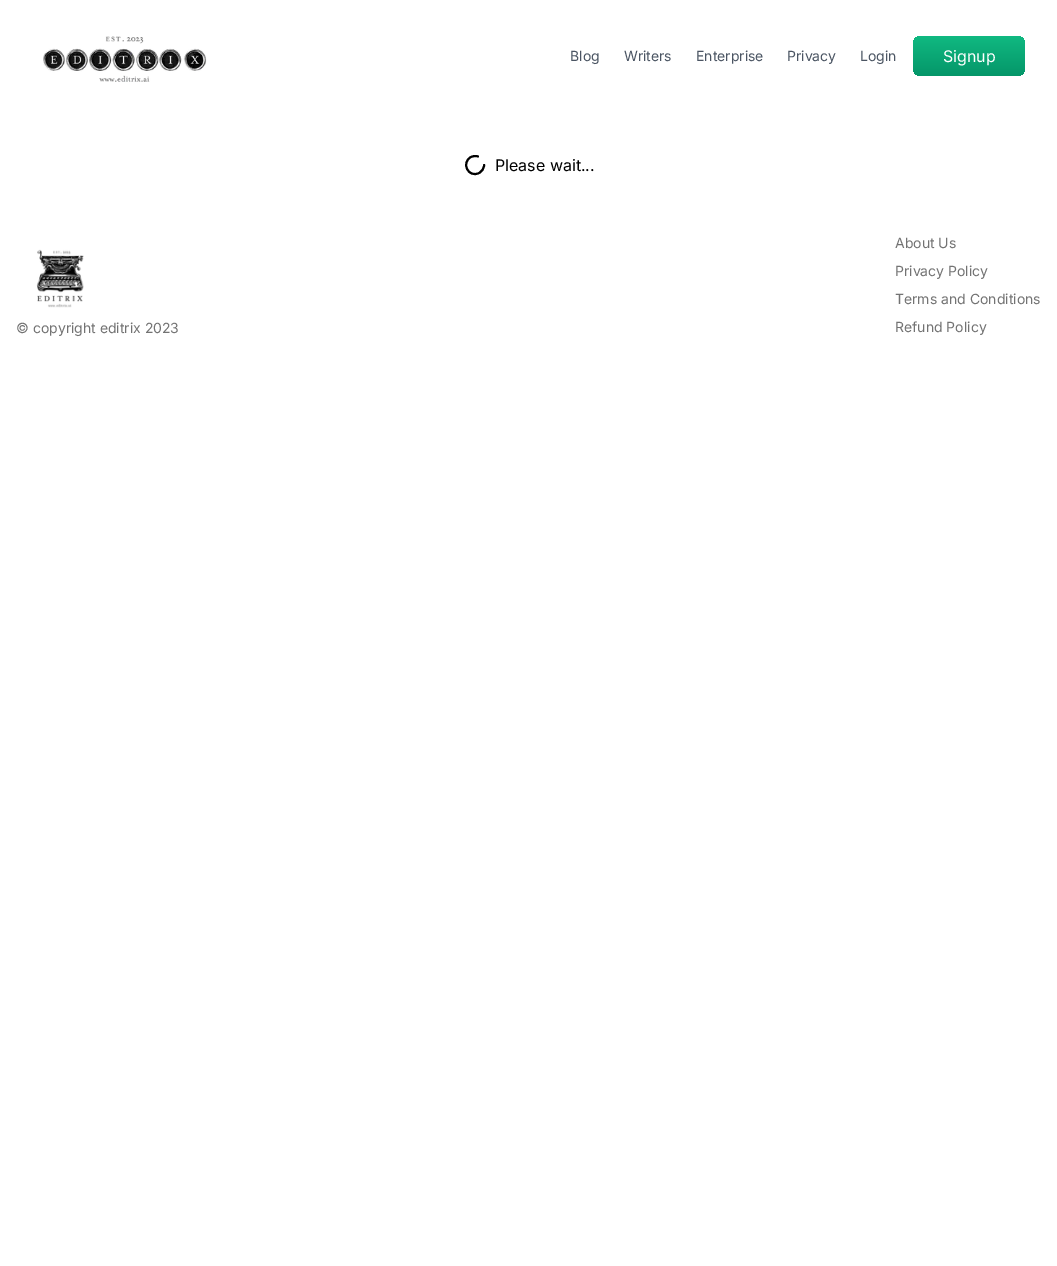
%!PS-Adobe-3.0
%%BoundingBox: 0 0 1057 1266
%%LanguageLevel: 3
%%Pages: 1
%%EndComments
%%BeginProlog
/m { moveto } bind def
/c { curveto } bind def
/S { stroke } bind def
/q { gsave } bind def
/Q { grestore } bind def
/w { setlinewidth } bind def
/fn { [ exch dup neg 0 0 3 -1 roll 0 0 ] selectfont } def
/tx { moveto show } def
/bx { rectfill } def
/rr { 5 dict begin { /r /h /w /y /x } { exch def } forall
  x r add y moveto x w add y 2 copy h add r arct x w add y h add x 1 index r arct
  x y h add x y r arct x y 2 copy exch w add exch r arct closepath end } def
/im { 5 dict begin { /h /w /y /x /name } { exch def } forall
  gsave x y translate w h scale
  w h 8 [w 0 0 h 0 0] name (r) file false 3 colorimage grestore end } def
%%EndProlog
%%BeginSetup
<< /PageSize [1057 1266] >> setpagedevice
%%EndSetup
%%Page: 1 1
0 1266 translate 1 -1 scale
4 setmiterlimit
1 setgray
0 0 1057 1266 bx
(image0.raw) 43 36 164 46 im
/Inter-Regular 14 fn
0.294 0.333 0.388 setrgbcolor
(Blog) 570 61 tx
(Writers) 624 61 tx
(Enterprise) 696 61 tx
(Privacy) 787 61 tx
(Login) 860 61 tx
q 913 36 112 40 8 rr clip newpath
<< /ShadingType 2 /ColorSpace /DeviceRGB /Coords [969 36 969 76] /Extend [true true] /Function << /FunctionType 2 /Domain [0 1] /C0 [0.063 0.725 0.506] /C1 [0.02 0.588 0.412] /N 1 >> >> shfill Q
/Inter-Regular 16 fn
1 setgray
(Signup) 943 62 tx
0 setgray
2 w
1 setlinecap
1 setlinejoin
484 165 m 484 168.5 482 171.5 479 173 c 468.5 178.5 460.5 162.5 471 157 c 473 156 475.5 155.5 478 156.5 c S
(Please wait...) 495 171 tx
(image1.raw) 36 249 48 59 im
/Inter-Regular 14 fn
0.451 setgray
(© copyright editrix 2023) 16 333 tx
(About Us) 895 248 tx
(Privacy Policy) 895 276 tx
(Terms and Conditions) 895 304 tx
(Refund Policy) 895 332 tx
showpage
%%EOF
